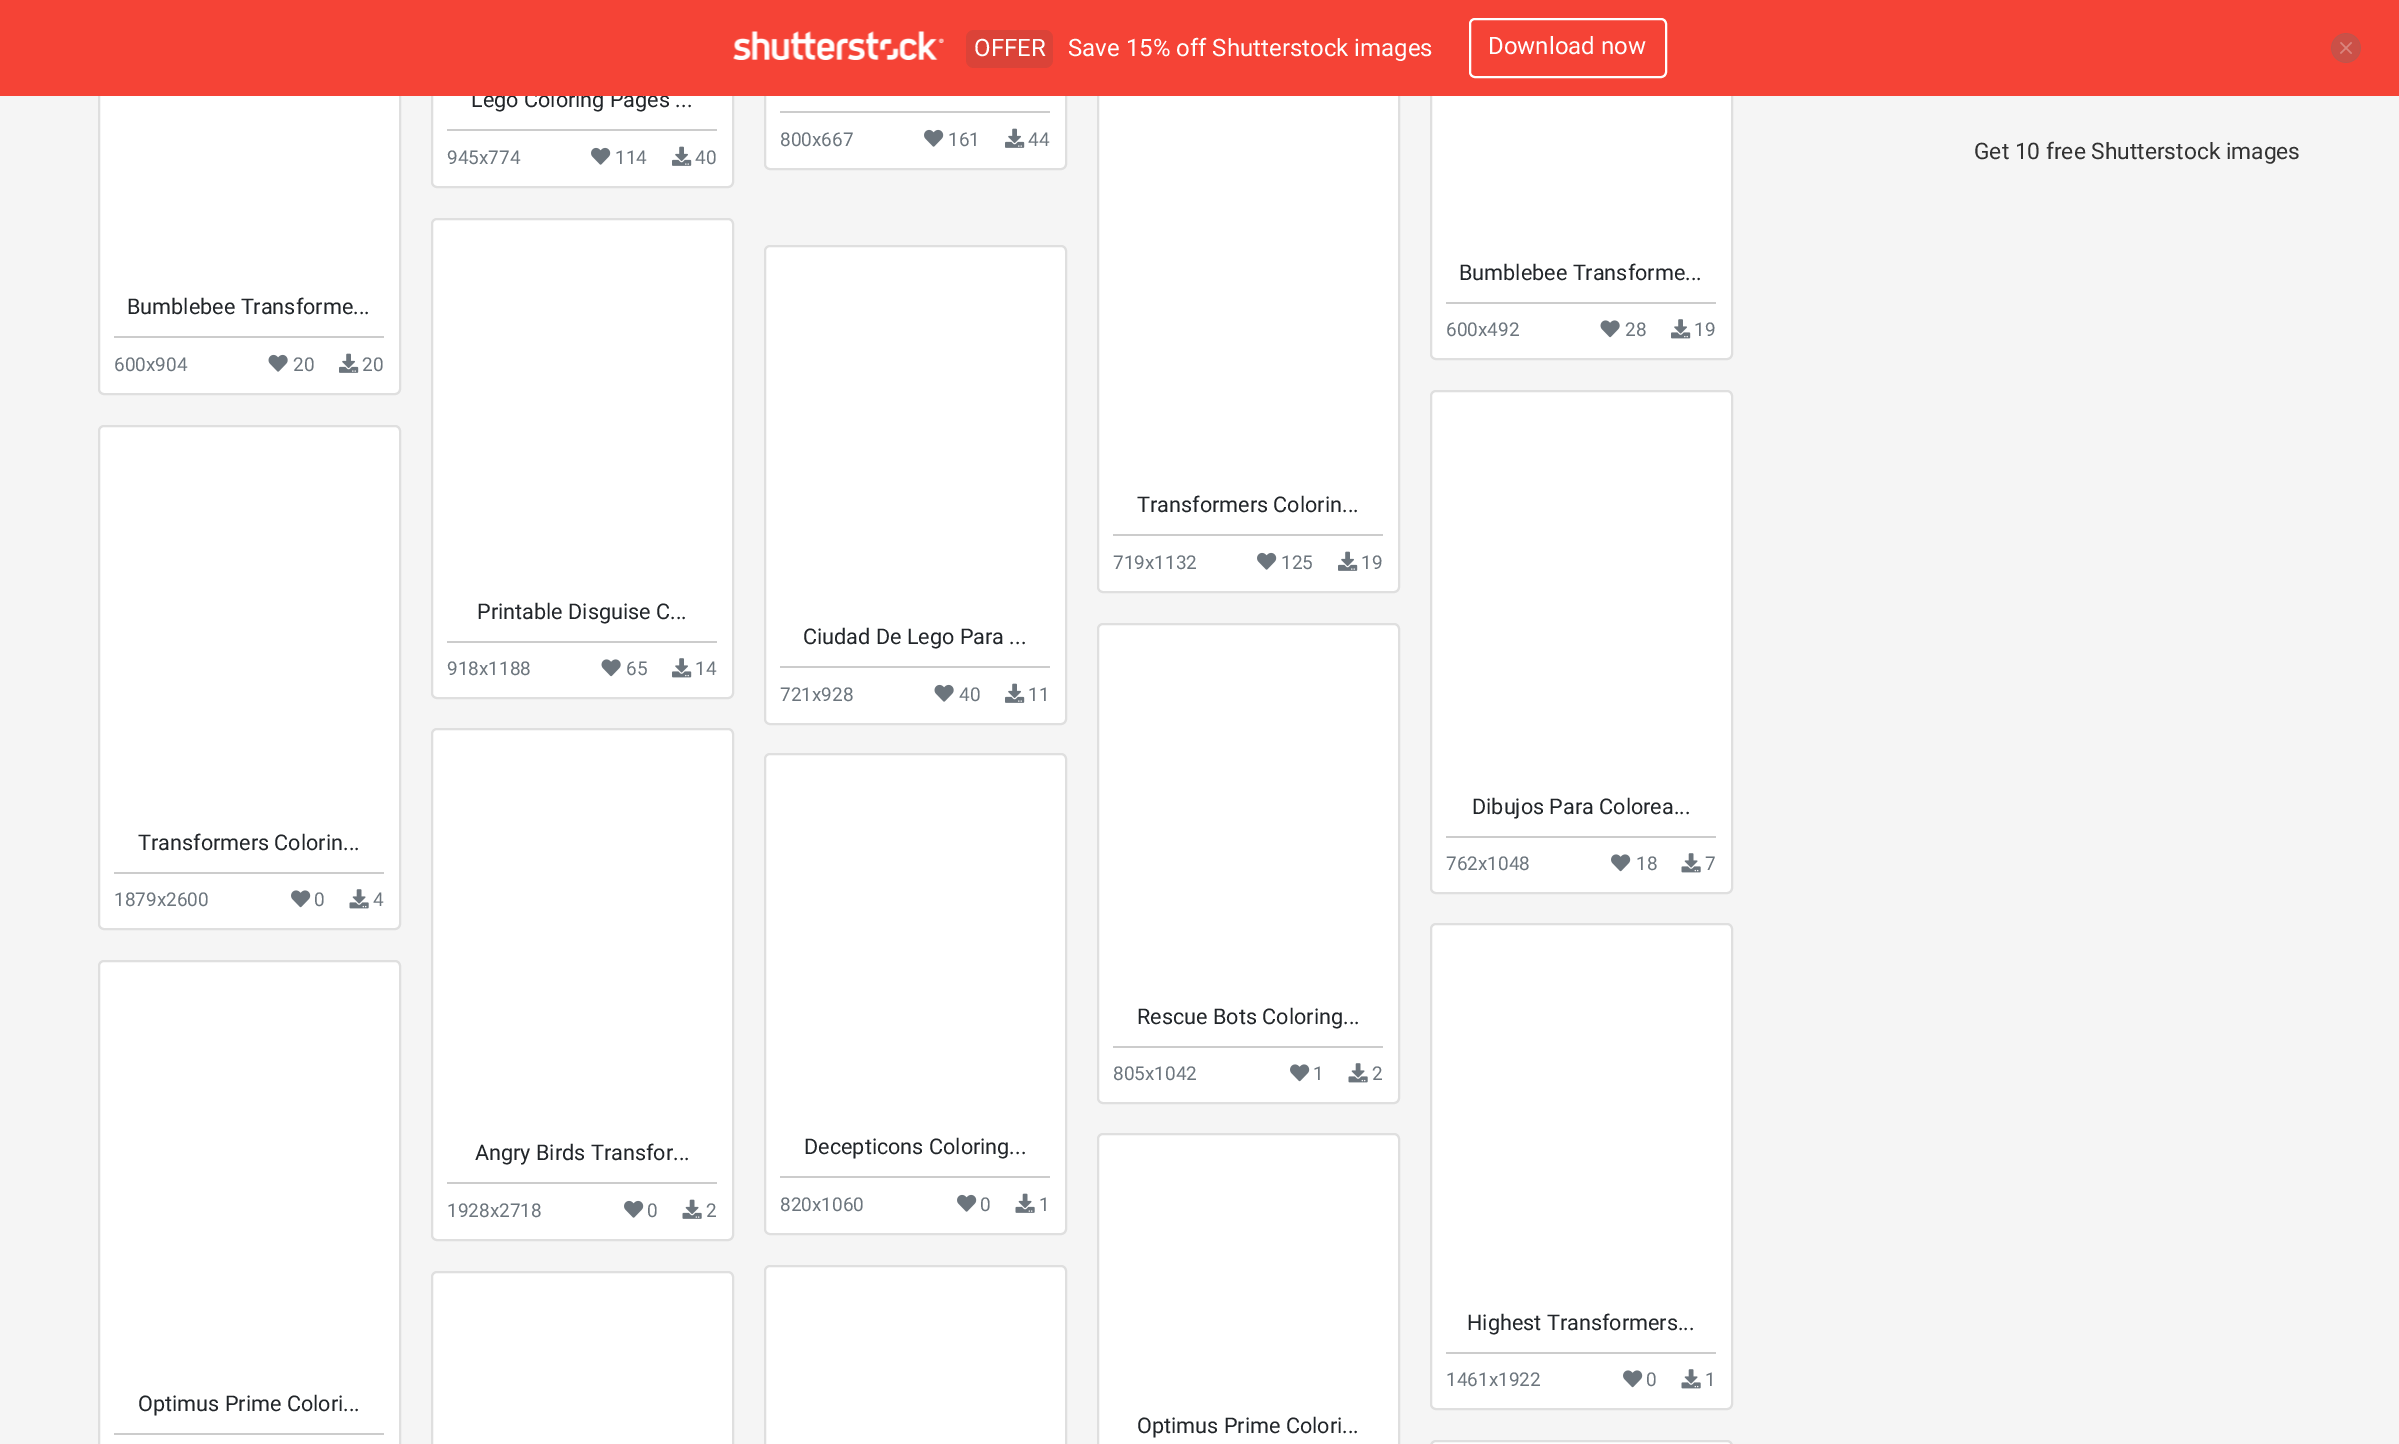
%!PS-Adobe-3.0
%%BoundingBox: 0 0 2399 1444
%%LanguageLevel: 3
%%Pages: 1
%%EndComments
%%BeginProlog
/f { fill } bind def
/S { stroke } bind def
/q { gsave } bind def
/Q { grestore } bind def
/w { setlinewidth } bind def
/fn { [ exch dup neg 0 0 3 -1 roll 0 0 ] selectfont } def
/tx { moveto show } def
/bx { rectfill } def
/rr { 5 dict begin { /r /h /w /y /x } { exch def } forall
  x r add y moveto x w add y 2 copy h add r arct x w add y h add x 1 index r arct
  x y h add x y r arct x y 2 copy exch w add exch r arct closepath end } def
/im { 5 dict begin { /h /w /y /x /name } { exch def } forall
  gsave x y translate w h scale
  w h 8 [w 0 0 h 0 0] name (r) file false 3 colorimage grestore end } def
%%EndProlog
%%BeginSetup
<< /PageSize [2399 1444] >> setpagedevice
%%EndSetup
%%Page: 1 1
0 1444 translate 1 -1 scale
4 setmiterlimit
0.961 setgray
0 0 2399 1444 bx
1 setgray
432 -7 301 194 5 rr q f Q
0.875 setgray
2 w
S
/Roboto-Regular 21.6 fn
0.129 0.145 0.161 setrgbcolor
(Lego Coloring Pages ...) 471 107 tx
1 setgray
765 -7 301 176 5 rr q f Q
0.875 setgray
S
1 setgray
99 -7 301 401 5 rr q f Q
0.875 setgray
S
1 setgray
1431 7 301 352 5 rr q f Q
0.875 setgray
S
1 setgray
1098 37 301 555 5 rr q f Q
0.875 setgray
S
0.961 0.263 0.212 setrgbcolor
0 0 2399 96 bx
(image0.raw) 733 31 211 29 im
0.859 0.263 0.22 setrgbcolor
966 30 87 38 8 rr f
/Roboto-Regular 24 fn
1 setgray
(OFFER) 974 56 tx
(Save 15% off Shutterstock images) 1068 56 tx
1470 19 196 58 5 rr S
(Download now) 1488 54 tx
(image1.raw) 2331 33 30 30 im
0.8 setgray
447 129 270 2 bx
/Roboto-Regular 19 fn
0.424 0.459 0.49 setrgbcolor
(945x774) 447 164 tx
(image2.raw) 591 147 20 18 im
(114) 615 164 tx
(image3.raw) 672 146 20 20 im
(40) 695 164 tx
0.8 setgray
780 111 270 2 bx
0.424 0.459 0.49 setrgbcolor
(800x667) 780 146 tx
(image2.raw) 924 129 20 18 im
(161) 948 146 tx
(image3.raw) 1005 128 20 20 im
(44) 1028 146 tx
0.8 setgray
114 336 270 2 bx
/Roboto-Regular 21.6 fn
0.129 0.145 0.161 setrgbcolor
(Bumblebee Transforme...) 127 314 tx
/Roboto-Regular 19 fn
0.424 0.459 0.49 setrgbcolor
(600x904) 114 371 tx
(image4.raw) 268 354 20 18 im
(20) 293 371 tx
(image3.raw) 339 353 20 20 im
(20) 362 371 tx
0.8 setgray
1446 302 270 2 bx
/Roboto-Regular 21.6 fn
0.129 0.145 0.161 setrgbcolor
(Bumblebee Transforme...) 1459 280 tx
/Roboto-Regular 19 fn
0.424 0.459 0.49 setrgbcolor
(600x492) 1446 336 tx
(image5.raw) 1600 320 20 18 im
(28) 1625 336 tx
(image6.raw) 1671 319 20 20 im
(19) 1694 336 tx
0.8 setgray
1113 534 270 2 bx
/Roboto-Regular 21.6 fn
0.129 0.145 0.161 setrgbcolor
(Transformers Colorin...) 1137 512 tx
/Roboto-Regular 19 fn
0.424 0.459 0.49 setrgbcolor
(719x1132) 1113 569 tx
(image2.raw) 1257 552 20 18 im
(125) 1281 569 tx
(image3.raw) 1338 551 20 20 im
(19) 1361 569 tx
1 setgray
432 219 301 479 5 rr q f Q
0.875 setgray
S
0.8 setgray
447 641 270 2 bx
/Roboto-Regular 21.6 fn
0.129 0.145 0.161 setrgbcolor
(Printable Disguise C...) 477 619 tx
/Roboto-Regular 19 fn
0.424 0.459 0.49 setrgbcolor
(918x1188) 447 675 tx
(image5.raw) 601 659 20 18 im
(65) 626 675 tx
(image6.raw) 672 658 20 20 im
(14) 695 675 tx
1 setgray
765 246 301 478 5 rr q f Q
0.875 setgray
S
0.8 setgray
780 666 270 2 bx
/Roboto-Regular 21.6 fn
0.129 0.145 0.161 setrgbcolor
(Ciudad De Lego Para ...) 803 644 tx
/Roboto-Regular 19 fn
0.424 0.459 0.49 setrgbcolor
(721x928) 780 701 tx
(image4.raw) 934 684 20 18 im
(40) 959 701 tx
(image3.raw) 1005 683 20 20 im
(11) 1028 701 tx
1 setgray
99 426 301 503 5 rr q f Q
0.875 setgray
S
0.8 setgray
114 872 270 2 bx
/Roboto-Regular 21.6 fn
0.129 0.145 0.161 setrgbcolor
(Transformers Colorin...) 138 850 tx
/Roboto-Regular 19 fn
0.424 0.459 0.49 setrgbcolor
(1879x2600) 114 906 tx
(image7.raw) 291 890 20 18 im
(0) 314 906 tx
(image8.raw) 349 889 20 20 im
(4) 373 906 tx
1 setgray
1431 391 301 502 5 rr q f Q
0.875 setgray
S
0.8 setgray
1446 836 270 2 bx
/Roboto-Regular 21.6 fn
0.129 0.145 0.161 setrgbcolor
(Dibujos Para Colorea...) 1472 814 tx
/Roboto-Regular 19 fn
0.424 0.459 0.49 setrgbcolor
(762x1048) 1446 870 tx
(image7.raw) 1611 854 20 18 im
(18) 1636 870 tx
(image8.raw) 1681 853 20 20 im
(7) 1705 870 tx
1 setgray
1098 624 301 479 5 rr q f Q
0.875 setgray
S
0.8 setgray
1113 1046 270 2 bx
/Roboto-Regular 21.6 fn
0.129 0.145 0.161 setrgbcolor
(Rescue Bots Coloring...) 1137 1024 tx
/Roboto-Regular 19 fn
0.424 0.459 0.49 setrgbcolor
(805x1042) 1113 1080 tx
(image7.raw) 1290 1064 20 18 im
(1) 1313 1080 tx
(image8.raw) 1348 1063 20 20 im
(2) 1372 1080 tx
1 setgray
432 729 301 511 5 rr q f Q
0.875 setgray
S
0.8 setgray
447 1182 270 2 bx
/Roboto-Regular 21.6 fn
0.129 0.145 0.161 setrgbcolor
(Angry Birds Transfor...) 475 1160 tx
/Roboto-Regular 19 fn
0.424 0.459 0.49 setrgbcolor
(1928x2718) 447 1217 tx
(image2.raw) 624 1200 20 18 im
(0) 647 1217 tx
(image9.raw) 682 1199 20 20 im
(2) 706 1217 tx
1 setgray
765 754 301 480 5 rr q f Q
0.875 setgray
S
0.8 setgray
780 1176 270 2 bx
/Roboto-Regular 21.6 fn
0.129 0.145 0.161 setrgbcolor
(Decepticons Coloring...) 804 1154 tx
/Roboto-Regular 19 fn
0.424 0.459 0.49 setrgbcolor
(820x1060) 780 1211 tx
(image2.raw) 957 1194 20 18 im
(0) 980 1211 tx
(image9.raw) 1015 1193 20 20 im
(1) 1039 1211 tx
1 setgray
432 1272 301 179 5 rr q f Q
0.875 setgray
S
1 setgray
765 1266 301 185 5 rr q f Q
0.875 setgray
S
1 setgray
1431 924 301 485 5 rr q f Q
0.875 setgray
S
0.8 setgray
1446 1352 270 2 bx
/Roboto-Regular 21.6 fn
0.129 0.145 0.161 setrgbcolor
(Highest Transformers...) 1467 1330 tx
/Roboto-Regular 19 fn
0.424 0.459 0.49 setrgbcolor
(1461x1922) 1446 1386 tx
(image7.raw) 1623 1370 20 18 im
(0) 1646 1386 tx
(image8.raw) 1681 1369 20 20 im
(1) 1705 1386 tx
1 setgray
99 961 301 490 5 rr q f Q
0.875 setgray
S
0.8 setgray
114 1433 270 2 bx
/Roboto-Regular 21.6 fn
0.129 0.145 0.161 setrgbcolor
(Optimus Prime Colori...) 138 1411 tx
1 setgray
1098 1134 301 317 5 rr q f Q
0.875 setgray
S
0.129 0.145 0.161 setrgbcolor
(Optimus Prime Colori...) 1137 1433 tx
1 setgray
1431 1441 301 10 5 rr q f Q
0.875 setgray
S
/Roboto-Regular 22.75 fn
0.196 setgray
(Get 10 free Shutterstock images) 1974 159 tx
showpage
%%EOF
